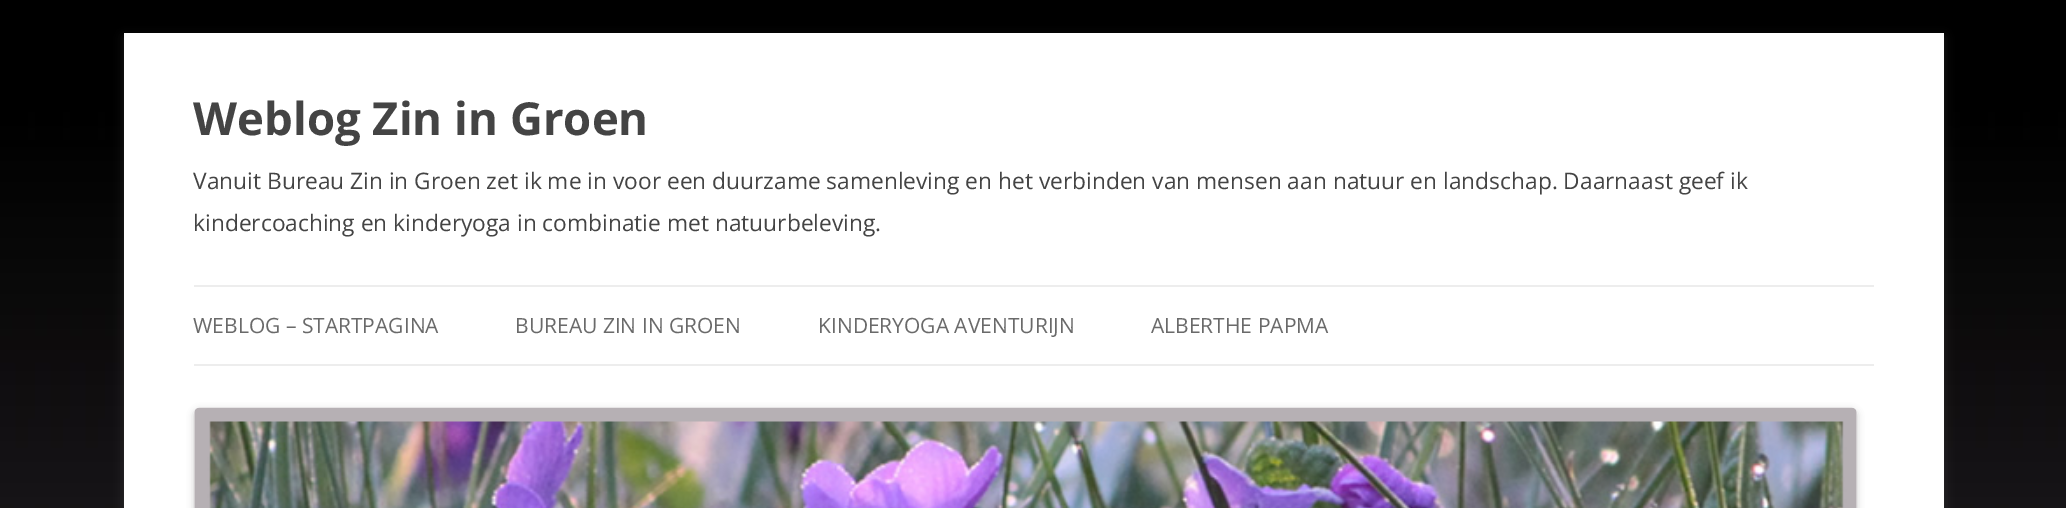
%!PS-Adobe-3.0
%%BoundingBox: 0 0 2066 508
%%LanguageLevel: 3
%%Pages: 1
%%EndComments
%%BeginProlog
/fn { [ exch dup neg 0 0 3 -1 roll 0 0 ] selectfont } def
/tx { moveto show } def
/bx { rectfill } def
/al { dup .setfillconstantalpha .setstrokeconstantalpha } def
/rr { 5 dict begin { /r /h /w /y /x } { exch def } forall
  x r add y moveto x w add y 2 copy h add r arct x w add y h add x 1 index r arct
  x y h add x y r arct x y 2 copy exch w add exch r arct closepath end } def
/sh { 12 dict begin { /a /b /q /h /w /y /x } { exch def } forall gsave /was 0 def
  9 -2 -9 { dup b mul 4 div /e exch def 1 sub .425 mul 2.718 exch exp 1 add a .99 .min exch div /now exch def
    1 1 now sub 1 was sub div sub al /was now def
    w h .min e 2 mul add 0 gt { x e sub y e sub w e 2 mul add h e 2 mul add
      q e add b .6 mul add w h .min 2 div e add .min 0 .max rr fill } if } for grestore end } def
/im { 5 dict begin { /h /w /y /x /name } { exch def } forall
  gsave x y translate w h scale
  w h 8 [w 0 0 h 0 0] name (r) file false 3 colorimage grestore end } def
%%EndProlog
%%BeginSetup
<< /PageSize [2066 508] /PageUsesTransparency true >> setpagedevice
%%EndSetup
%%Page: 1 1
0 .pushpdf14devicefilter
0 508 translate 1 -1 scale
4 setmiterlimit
1 setgray
0 0 2066 508 bx
(image0.raw) 0 0 2066 508 im
0.392 setgray
124 37 1820 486 0 5 0.3 sh
1 setgray
124 33 1820 475 bx
/OpenSans-Bold 45.5 fn
0.267 setgray
(Weblog Zin in Groen) 193 135 tx
/OpenSans-Regular 22.75 fn
(Vanuit Bureau Zin in Groen zet ik me in voor een duurzame samenleving en het verbinden van mensen aan natuur en landschap. Daarnaast geef ik) 193 189 tx
(kindercoaching en kinderyoga in combinatie met natuurbeleving.) 193 231 tx
0.929 setgray
194 285 1680 2 bx
194 364 1680 2 bx
/OpenSans-Regular 21 fn
0.416 setgray
(WEBLOG – STARTPAGINA) 193 333 tx
(BUREAU ZIN IN GROEN) 515 333 tx
(KINDERYOGA AVENTURIJN) 818 333 tx
(ALBERTHE PAPMA) 1151 333 tx
0 setgray
194 410 1663 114 5 3.5 0.2 sh
(image1.raw) 194 407 1663 101 im
.poppdf14devicefilter showpage
%%EOF
